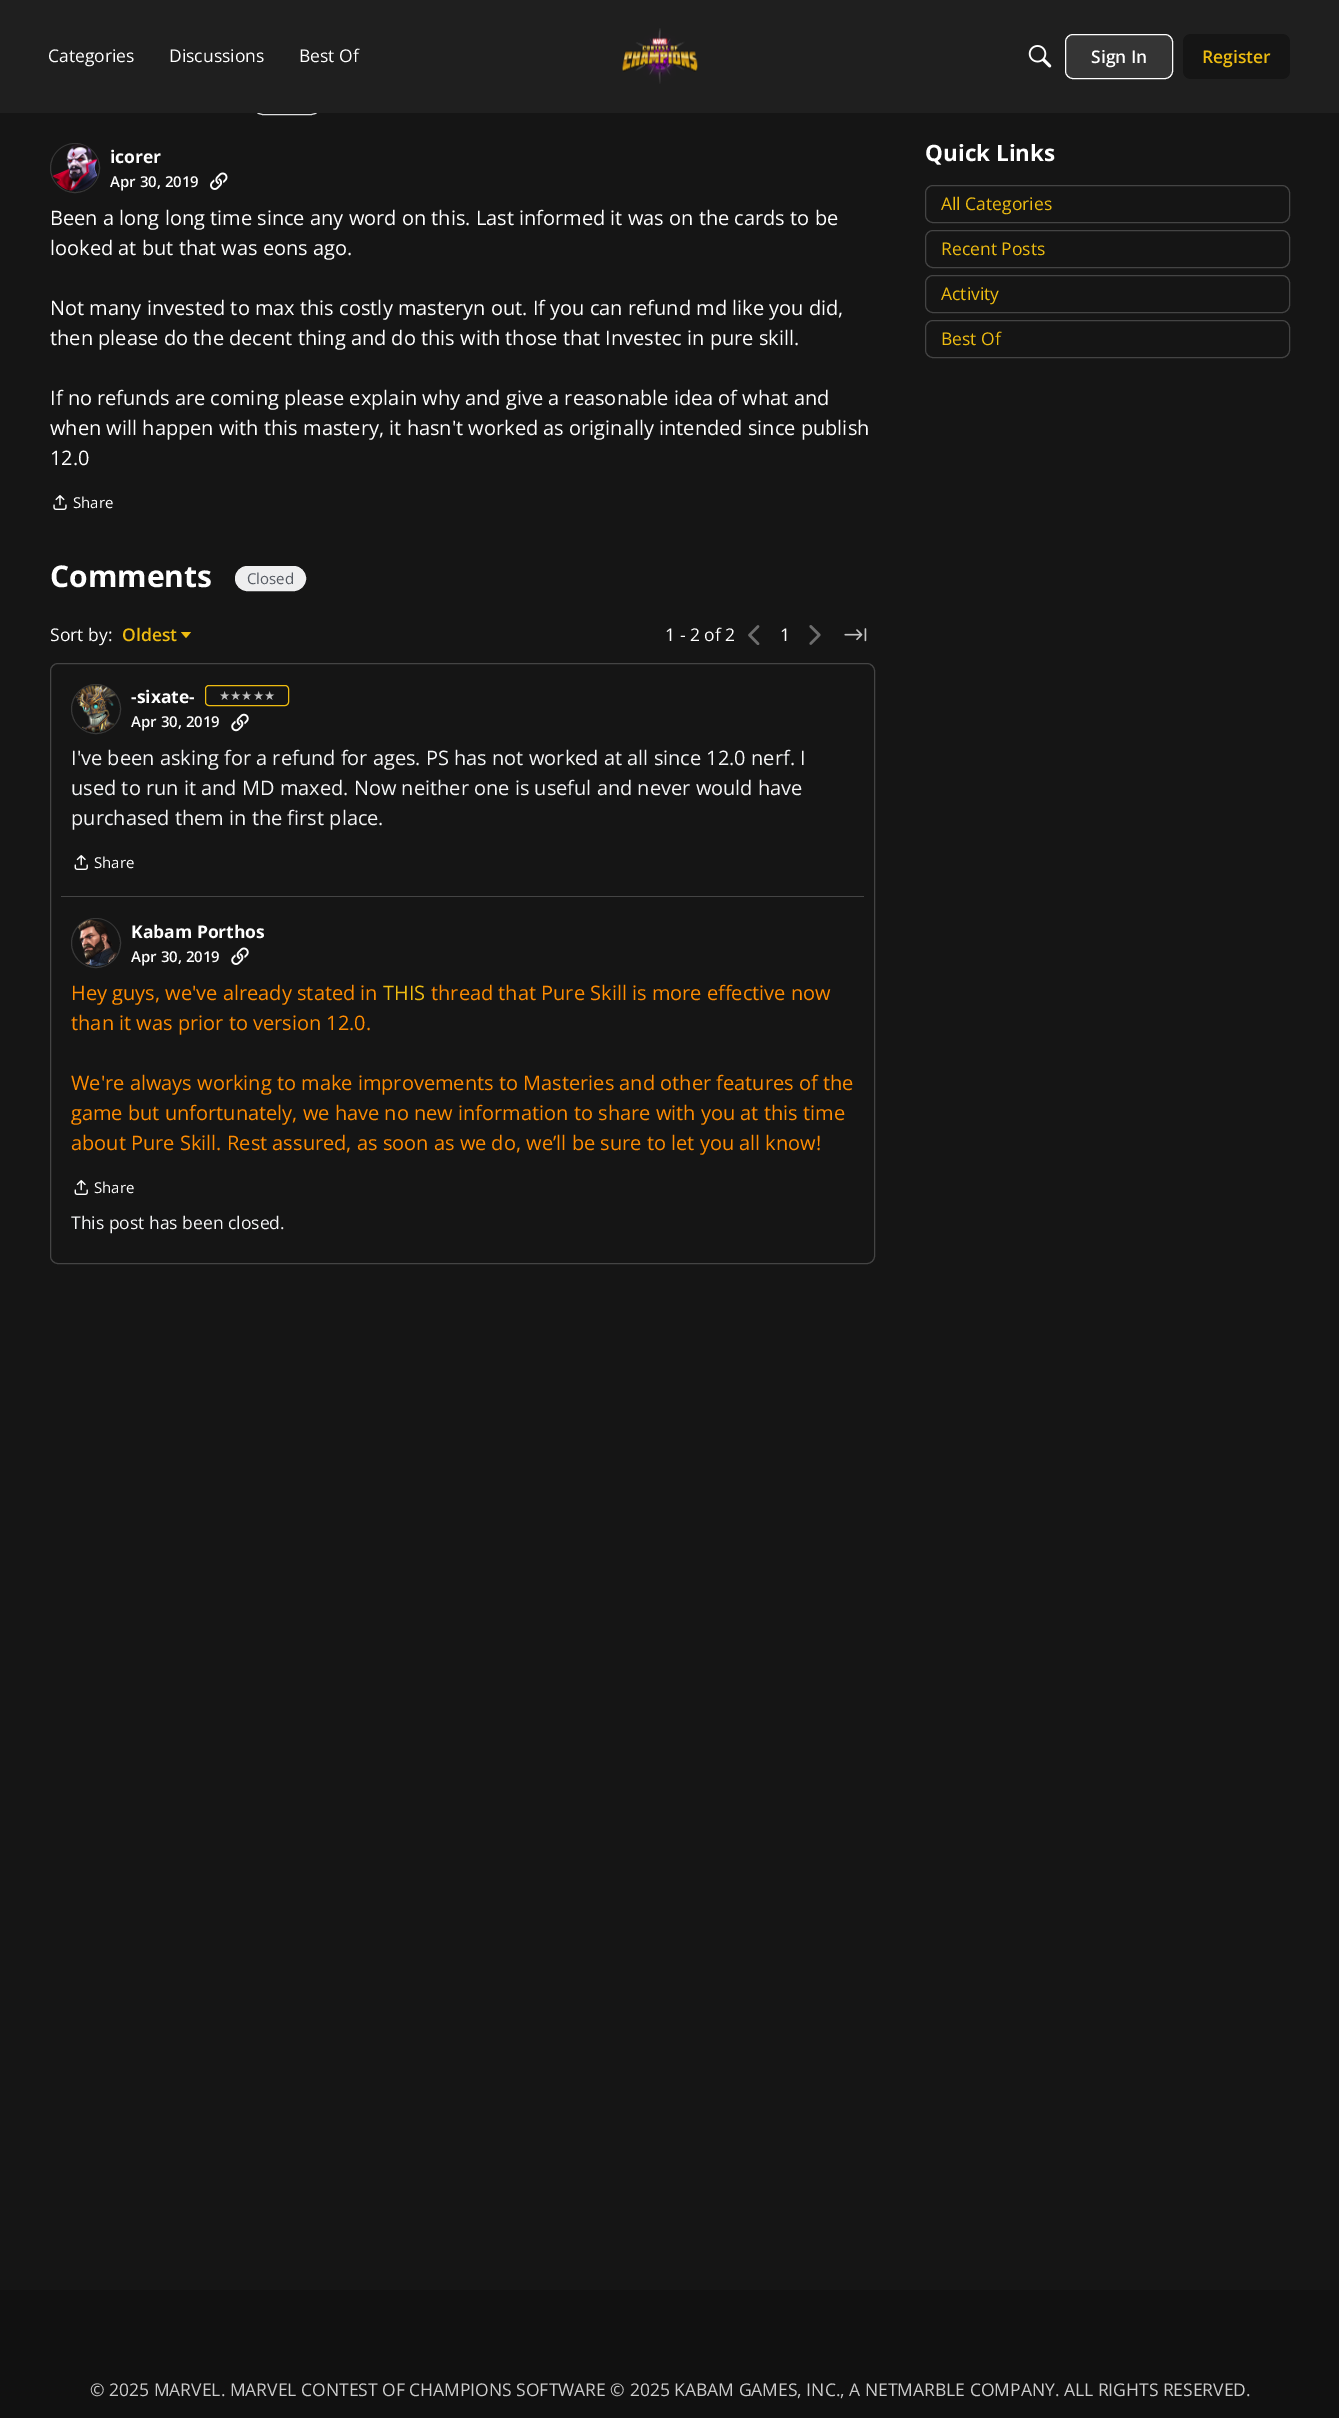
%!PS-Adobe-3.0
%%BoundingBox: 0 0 1339 2418
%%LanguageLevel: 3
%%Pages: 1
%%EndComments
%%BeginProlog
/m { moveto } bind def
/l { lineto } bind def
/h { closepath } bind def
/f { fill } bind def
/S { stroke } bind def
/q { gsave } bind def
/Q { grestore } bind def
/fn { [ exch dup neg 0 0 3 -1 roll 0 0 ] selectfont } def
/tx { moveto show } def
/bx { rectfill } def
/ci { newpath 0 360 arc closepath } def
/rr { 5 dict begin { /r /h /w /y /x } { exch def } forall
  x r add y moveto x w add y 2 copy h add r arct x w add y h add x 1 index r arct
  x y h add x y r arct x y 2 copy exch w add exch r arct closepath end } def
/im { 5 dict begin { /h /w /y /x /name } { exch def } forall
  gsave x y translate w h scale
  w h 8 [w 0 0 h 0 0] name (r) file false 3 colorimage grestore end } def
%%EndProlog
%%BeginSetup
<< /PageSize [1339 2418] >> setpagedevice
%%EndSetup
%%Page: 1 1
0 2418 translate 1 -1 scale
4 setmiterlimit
0.082 setgray
0 0 1339 2418 bx
0.867 0.871 0.878 setrgbcolor
251.5 90.5 71 24 12 rr S
0.122 setgray
0 0 1339 113 bx
/OpenSans-Regular 17.5 fn
1 setgray
(Categories) 48 62 tx
(Discussions) 169 62 tx
(Best Of) 299 62 tx
(image0.raw) 622 28 76 56 im
(image1.raw) 1028 45 24 23 im
0.208 setgray
1065.5 34.5 107 44 7.5 rr q f Q
1 setgray
S
/OpenSans-SemiBold 17.5 fn
(Sign In) 1091 63 tx
0.082 setgray
1183 34 107 45 8 rr f
0.933 0.737 0.067 setrgbcolor
(Register) 1202 63 tx
0.22 setgray
75 168 24.5 ci S
(image2.raw) 53 144 45 47 im
/OpenSans-Bold 17.5 fn
1 setgray
(icorer) 110 163 tx
/OpenSans-SemiBold 15 fn
(Apr 30, 2019) 110 187 tx
(image3.raw) 210 172 18 18 im
/OpenSans-Regular 20 fn
(Been a long long time since any word on this. Last informed it was on the cards to be) 50 225 tx
(looked at but that was eons ago.) 50 255 tx
(Not many invested to max this costly masteryn out. If you can refund md like you did,) 50 315 tx
(then please do the decent thing and do this with those that Investec in pure skill.) 50 345 tx
(If no refunds are coming please explain why and give a reasonable idea of what and) 50 405 tx
(when will happen with this mastery, it hasn't worked as originally intended since publish) 50 435 tx
(12.0) 50 465 tx
(image4.raw) 53 495 14 15 im
/OpenSans-Regular 15 fn
(Share) 73 508 tx
/OpenSans-Bold 30 fn
(Comments) 50 587 tx
0.933 0.933 0.937 setrgbcolor
235.5 566.5 70 24 12 rr q f Q
S
/OpenSans-Regular 15 fn
0.333 0.353 0.384 setrgbcolor
(Closed) 247 584 tx
/OpenSans-Regular 17.5 fn
1 setgray
(Sort by:) 50 641 tx
/OpenSans-SemiBold 17.5 fn
0.933 0.737 0.067 setrgbcolor
(Oldest) 122 641 tx
181 632 m 191 632 l 186 638 l h f
/OpenSans-Regular 17.5 fn
1 setgray
(1 - 2 of 2) 665 641 tx
(image5.raw) 748 625 12 20 im
(1) 780 641 tx
(image6.raw) 809 625 12 20 im
(image7.raw) 844 628 23 14 im
0.267 setgray
50.5 663.5 824 600 7.5 rr S
0.22 setgray
96 709 24.5 ci S
(image8.raw) 75 685 41 47 im
/OpenSans-Bold 17.5 fn
1 setgray
(-sixate-) 131 703 tx
0.933 0.737 0.067 setrgbcolor
205.5 685.5 83 20 3.5 rr S
/DejaVuSans-Regular 12.5 fn
0.753 setgray
(★★★★★) 219 700 tx
/OpenSans-SemiBold 15 fn
1 setgray
(Apr 30, 2019) 131 727 tx
(image9.raw) 231 713 18 19 im
/OpenSans-Regular 20 fn
0.961 0.965 0.969 setrgbcolor
(I've been asking for a refund for ages. PS has not worked at all since 12.0 nerf. I) 71 765 tx
(used to run it and MD maxed. Now neither one is useful and never would have) 71 795 tx
(purchased them in the first place.) 71 825 tx
(image10.raw) 74 855 14 15 im
/OpenSans-Regular 15 fn
1 setgray
(Share) 94 868 tx
0.267 setgray
61 896 803 1 bx
0.22 setgray
96 943 24.5 ci S
(image11.raw) 78 919 39 47 im
/OpenSans-Bold 17.5 fn
1 setgray
(Kabam Porthos) 131 938 tx
/OpenSans-SemiBold 15 fn
(Apr 30, 2019) 131 962 tx
(image12.raw) 231 947 18 18 im
/OpenSans-Regular 20 fn
1 0.549 0 setrgbcolor
(Hey guys, we've already stated in) 71 1000 tx
0.933 0.737 0.067 setrgbcolor
(THIS) 383 1000 tx
1 0.549 0 setrgbcolor
(thread that Pure Skill is more effective now) 431 1000 tx
(than it was prior to version 12.0.) 71 1030 tx
(We're always working to make improvements to Masteries and other features of the) 71 1090 tx
(game but unfortunately, we have no new information to share with you at this time) 71 1120 tx
(about Pure Skill. Rest assured, as soon as we do, we’ll be sure to let you all know!) 71 1150 tx
(image10.raw) 74 1180 14 15 im
/OpenSans-Regular 15 fn
1 setgray
(Share) 94 1193 tx
/OpenSans-Regular 17.5 fn
0.961 0.965 0.969 setrgbcolor
(This post has been closed.) 71 1229 tx
/OpenSans-Bold 22.5 fn
1 setgray
(Quick Links) 925 161 tx
0.267 setgray
925.5 185.5 364 37 7.5 rr S
/OpenSans-Regular 17.5 fn
0.933 0.737 0.067 setrgbcolor
(All Categories) 941 210 tx
0.267 setgray
925.5 230.5 364 37 7.5 rr S
0.933 0.737 0.067 setrgbcolor
(Recent Posts) 941 255 tx
0.267 setgray
925.5 275.5 364 37 7.5 rr S
0.933 0.737 0.067 setrgbcolor
(Activity) 941 300 tx
0.267 setgray
925.5 320.5 364 37 7.5 rr S
0.933 0.737 0.067 setrgbcolor
(Best Of) 941 345 tx
0.067 setgray
0 2290 1339 128 bx
0.8 setgray
(© 2025 MARVEL. MARVEL CONTEST OF CHAMPIONS SOFTWARE © 2025 KABAM GAMES, INC., A NETMARBLE COMPANY. ALL RIGHTS RESERVED.) 90 2396 tx
showpage
%%EOF
